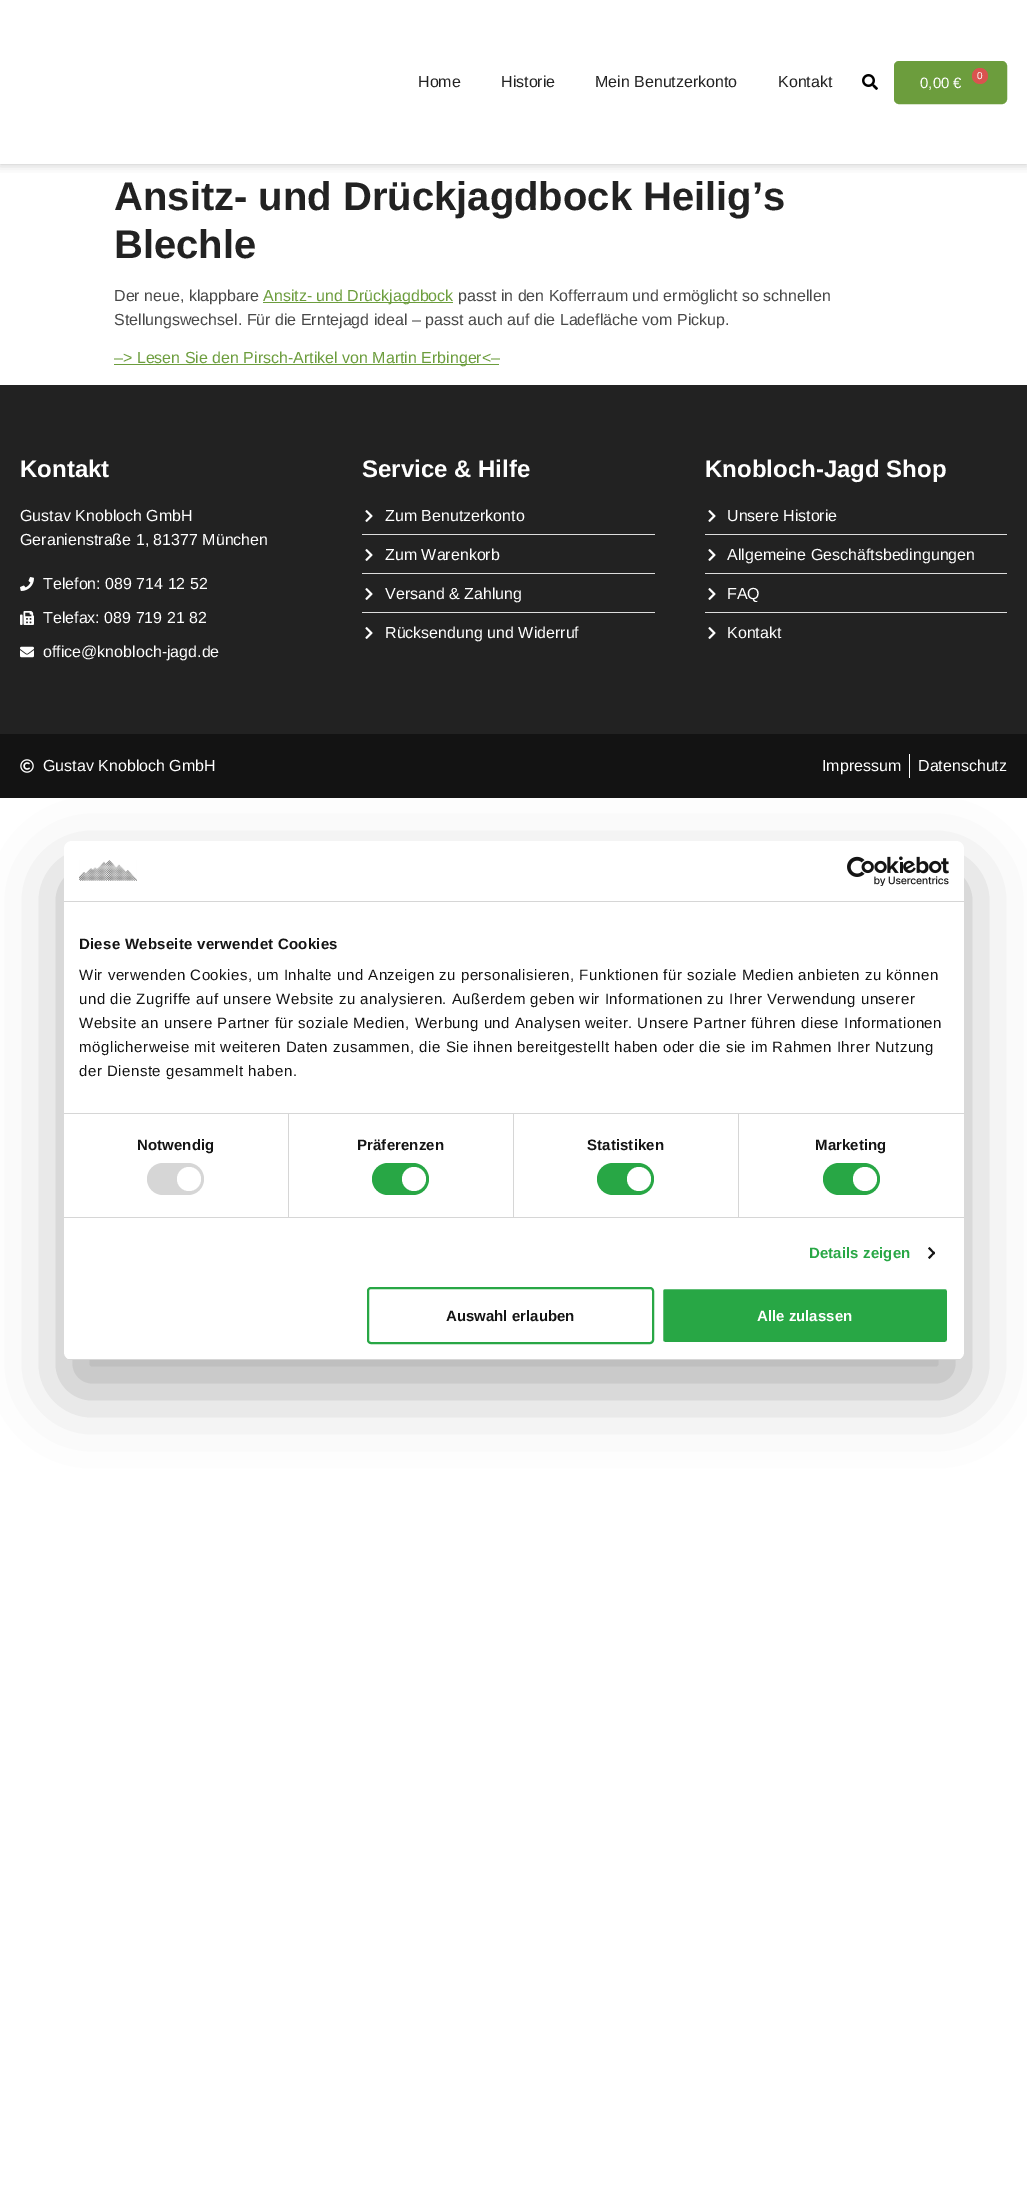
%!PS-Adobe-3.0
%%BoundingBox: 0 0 1027 2201
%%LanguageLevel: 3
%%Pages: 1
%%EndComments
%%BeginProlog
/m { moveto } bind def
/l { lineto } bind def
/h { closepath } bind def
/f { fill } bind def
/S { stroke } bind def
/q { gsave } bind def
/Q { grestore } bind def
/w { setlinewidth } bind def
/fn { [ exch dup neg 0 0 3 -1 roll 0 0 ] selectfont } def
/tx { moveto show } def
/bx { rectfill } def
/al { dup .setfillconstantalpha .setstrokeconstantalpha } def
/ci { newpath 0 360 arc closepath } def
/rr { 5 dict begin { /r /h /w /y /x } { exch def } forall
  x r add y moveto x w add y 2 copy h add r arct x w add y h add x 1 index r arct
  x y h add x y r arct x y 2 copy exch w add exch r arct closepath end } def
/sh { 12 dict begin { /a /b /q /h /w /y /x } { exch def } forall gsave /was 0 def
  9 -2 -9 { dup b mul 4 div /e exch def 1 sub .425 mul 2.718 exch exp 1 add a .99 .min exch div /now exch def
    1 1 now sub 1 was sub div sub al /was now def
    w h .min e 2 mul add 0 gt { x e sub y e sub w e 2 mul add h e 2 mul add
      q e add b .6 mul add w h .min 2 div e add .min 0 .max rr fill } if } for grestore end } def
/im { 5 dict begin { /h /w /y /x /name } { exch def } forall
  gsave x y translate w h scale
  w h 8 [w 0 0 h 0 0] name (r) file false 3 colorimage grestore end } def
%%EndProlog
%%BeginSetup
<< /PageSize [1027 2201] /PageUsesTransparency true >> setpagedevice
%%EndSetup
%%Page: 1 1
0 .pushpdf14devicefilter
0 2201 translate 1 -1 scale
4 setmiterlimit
1 setgray
0 0 1027 2201 bx
q
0 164 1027 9 rectclip
0.49 setgray
0 0 1027 164 0 5 0.5 sh
Q
/LiberationSans-Regular 16 fn
0.133 setgray
(Home) 418 87 tx
(Historie) 501 87 tx
(Mein Benutzerkonto) 595 87 tx
(Kontakt) 778 87 tx
(image0.raw) 862 74 16 16 im
0.424 0.616 0.239 setrgbcolor
895 62 111 41 4 rr q f Q
2 w
S
0.851 0.325 0.31 setrgbcolor
980 76 8 ci f
/LiberationSans-Regular 10 fn
1 setgray
(0) 977 79 tx
/LiberationSans-Regular 15 fn
(0,00 €) 920 88 tx
/LiberationSans-Bold 40 fn
0.133 setgray
(Ansitz- und Drückjagdbock Heilig’s) 114 210 tx
(Blechle) 114 258 tx
/LiberationSans-Regular 16 fn
0.282 setgray
(Der neue, klappbare) 114 301 tx
0.424 0.616 0.239 setrgbcolor
263 302 190 1 bx
(Ansitz- und Drückjagdbock) 263 301 tx
0.282 setgray
(passt in den Kofferraum und ermöglicht so schnellen) 458 301 tx
(Stellungswechsel. Für die Erntejagd ideal – passt auch auf die Ladefläche vom Pickup.) 114 325 tx
0.424 0.616 0.239 setrgbcolor
114 364 385 1 bx
(–> Lesen Sie den Pirsch-Artikel von Martin Erbinger<–) 114 363 tx
0.133 setgray
0 385 1027 349 bx
/LiberationSans-Bold 24 fn
1 setgray
(Kontakt) 20 477 tx
/LiberationSans-Regular 16 fn
(Gustav Knobloch GmbH) 20 521 tx
(Geranienstraße 1, 81377 München) 20 545 tx
(image1.raw) 20 577 14 14 im
(Telefon: 089 714 12 52) 43 589 tx
(image2.raw) 20 611 14 14 im
(Telefax: 089 719 21 82) 43 623 tx
(image3.raw) 20 646 14 12 im
(office@knobloch-jagd.de) 43 657 tx
/LiberationSans-Bold 24 fn
(Service & Hilfe) 362 477 tx
(image4.raw) 365 510 8 12 im
/LiberationSans-Regular 16 fn
(Zum Benutzerkonto) 385 521 tx
0.867 setgray
362 534 293 1 bx
(image4.raw) 365 549 8 12 im
1 setgray
(Zum Warenkorb) 385 560 tx
0.867 setgray
362 573 293 1 bx
(image4.raw) 365 588 8 12 im
1 setgray
(Versand & Zahlung) 385 599 tx
0.867 setgray
362 612 293 1 bx
(image4.raw) 365 627 8 12 im
1 setgray
(Rücksendung und Widerruf) 385 638 tx
/LiberationSans-Bold 24 fn
(Knobloch-Jagd Shop) 705 477 tx
(image4.raw) 708 510 8 12 im
/LiberationSans-Regular 16 fn
(Unsere Historie) 727 521 tx
0.867 setgray
705 534 302 1 bx
(image4.raw) 708 549 8 12 im
1 setgray
(Allgemeine Geschäftsbedingungen) 727 560 tx
0.867 setgray
705 573 302 1 bx
(image4.raw) 708 588 8 12 im
1 setgray
(FAQ) 727 599 tx
0.867 setgray
705 612 302 1 bx
(image4.raw) 708 627 8 12 im
1 setgray
(Kontakt) 727 638 tx
0.075 setgray
0 734 1027 64 bx
(image5.raw) 20 759 14 14 im
1 setgray
(Gustav Knobloch GmbH) 43 771 tx
(Impressum) 822 771 tx
909 754 1 24 bx
(Datenschutz) 918 771 tx
0 setgray
64 873 900 519 8 34 0.3 sh
1 setgray
64 841 900 519 8 rr f
0.839 setgray
64 901 900 1 bx
(image6.raw) 79 860 58 21 im
(image7.raw) 847 856 102 30 im
64 1113 900 1 bx
/LiberationSans-Bold 15 fn
0.078 setgray
79 949 m 0.25 0 (Diese Webseite verwendet Cookies) ashow
/LiberationSans-Regular 15 fn
79 980 m 0.5 0 (Wir verwenden Cookies, um Inhalte und Anzeigen zu personalisieren, Funktionen für soziale Medien anbieten zu können) ashow
79 1004 m 0.5 0 (und die Zugriffe auf unsere Website zu analysieren. Außerdem geben wir Informationen zu Ihrer Verwendung unserer) ashow
79 1028 m 0.5 0 (Website an unsere Partner für soziale Medien, Werbung und Analysen weiter. Unsere Partner führen diese Informationen) ashow
79 1052 m 0.5 0 (möglicherweise mit weiteren Daten zusammen, die Sie ihnen bereitgestellt haben oder die sie im Rahmen Ihrer Nutzung) ashow
79 1076 m 0.5 0 (der Dienste gesammelt haben.) ashow
0.839 setgray
64 1217 900 1 bx
288 1114 1 103 bx
/LiberationSans-Bold 15 fn
0.078 setgray
137 1150 m 0.1 0 (Notwendig) ashow
0.839 setgray
147 1163 57 32 16 rr f
1 setgray
189 1179 12 ci f
0.839 setgray
513 1114 1 103 bx
0.078 setgray
357 1150 m 0.1 0 (Präferenzen) ashow
0.157 0.655 0.271 setrgbcolor
372 1163 57 32 16 rr f
1 setgray
414 1179 12 ci f
0.839 setgray
738 1114 1 103 bx
0.078 setgray
587 1150 m 0.1 0 (Statistiken) ashow
0.157 0.655 0.271 setrgbcolor
597 1163 57 32 16 rr f
1 setgray
639 1179 12 ci f
0.078 setgray
815 1150 m 0.1 0 (Marketing) ashow
0.157 0.655 0.271 setrgbcolor
823 1163 57 32 16 rr f
1 setgray
865 1179 12 ci f
0.157 0.655 0.271 setrgbcolor
809 1258 m 0.1 0 (Details zeigen) ashow
0.078 setgray
929.5 1247 m 935 1253 l 934 1254.5 l 928 1248.5 l h f
934 1251.5 m 935 1253 l 929.5 1259 l 928 1257.5 l h f
q
64 841 900 519 8 rr clip newpath
0.839 setgray
64 1359 900 1 bx
Q
0.157 0.655 0.271 setrgbcolor
368 1288 285 55 3 rr S
0.078 setgray
(Auswahl erlauben) 446 1321 tx
0.157 0.655 0.271 setrgbcolor
662 1288 286 55 3 rr q f Q
1 setgray
S
(Alle zulassen) 757 1321 tx
.poppdf14devicefilter showpage
%%EOF
